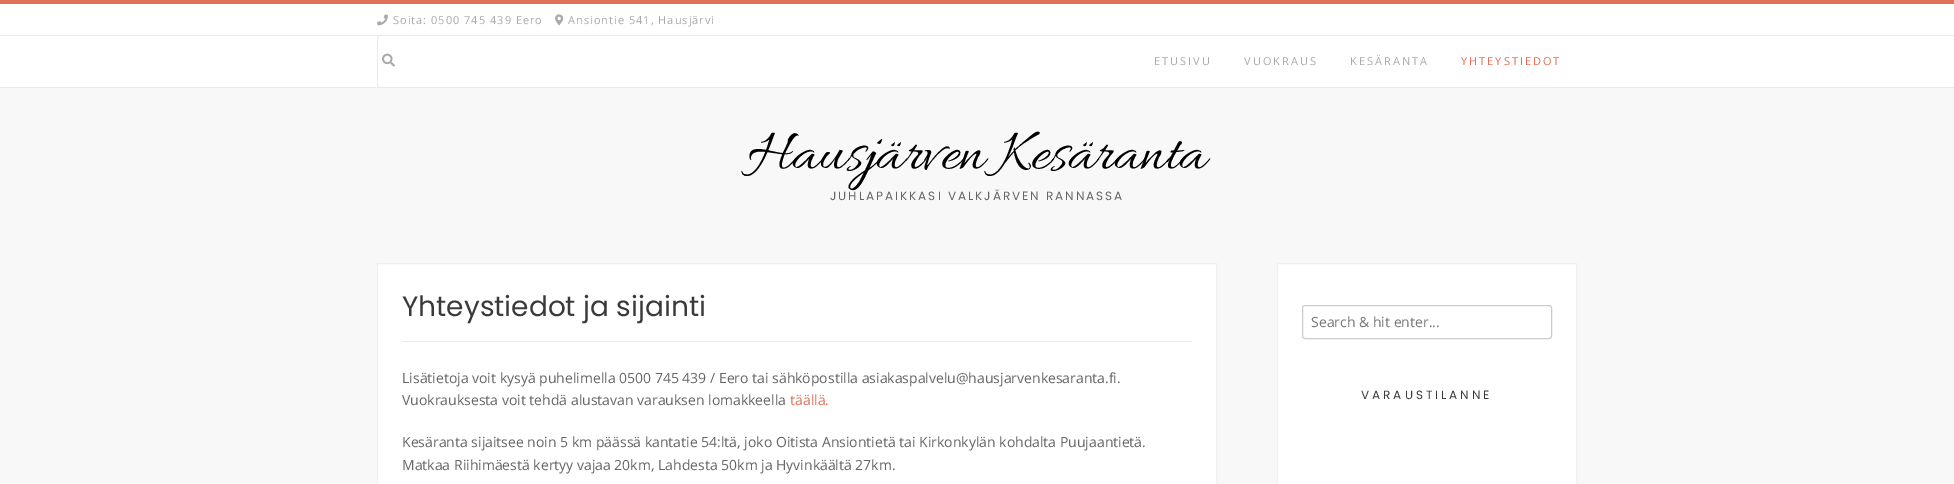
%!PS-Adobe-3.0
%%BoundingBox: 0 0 1954 484
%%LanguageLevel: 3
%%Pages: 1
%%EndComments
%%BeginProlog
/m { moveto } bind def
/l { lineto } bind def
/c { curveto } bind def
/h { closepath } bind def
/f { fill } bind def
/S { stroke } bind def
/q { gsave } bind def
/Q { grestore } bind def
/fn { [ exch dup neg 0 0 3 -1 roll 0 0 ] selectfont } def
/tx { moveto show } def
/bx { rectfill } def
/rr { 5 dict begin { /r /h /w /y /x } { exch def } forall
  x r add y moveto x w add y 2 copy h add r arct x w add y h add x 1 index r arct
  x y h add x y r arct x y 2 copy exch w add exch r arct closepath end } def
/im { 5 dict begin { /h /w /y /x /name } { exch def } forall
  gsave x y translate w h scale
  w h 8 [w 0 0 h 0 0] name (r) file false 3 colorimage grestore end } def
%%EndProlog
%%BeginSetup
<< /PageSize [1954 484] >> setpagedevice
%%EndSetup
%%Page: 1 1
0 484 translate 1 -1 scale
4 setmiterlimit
0.973 setgray
0 0 1954 484 bx
0.871 0.443 0.345 setrgbcolor
0 0 1954 4 bx
1 setgray
0 4 1954 31 bx
0.922 setgray
0 35 1954 1 bx
(image0.raw) 377 14 11 12 im
/OpenSans-Regular 11 fn
0.667 setgray
393 24 m 1 0 (Soita: 0500 745 439 Eero) ashow
(image1.raw) 555 14 9 12 im
568 24 m 1 0 (Ansiontie 541, Hausjärvi) ashow
1 setgray
0 36 1954 51 bx
0.922 setgray
0 87 1954 1 bx
380 36 m 378 36 377 37 377 39 c 377 84 l 377 86 378 87 380 87 c 381 87 l 379 87 378 86 378 84 c 378 39 l 378 37 379 36 381 36 c h f
(image2.raw) 382 53 13 14 im
0.667 setgray
1154 65 m 2 0 (ETUSIVU) ashow
1244 65 m 2 0 (VUOKRAUS) ashow
1350 65 m 2 0 (KESÄRANTA) ashow
0.871 0.443 0.345 setrgbcolor
1461 65 m 2 0 (YHTEYSTIEDOT) ashow
/Allura-Regular 60 fn
0 setgray
(Hausjärven Kesäranta) 747 168 tx
/Poppins-Regular 12 fn
0.396 setgray
830 200 m 2 0 (JUHLAPAIKKASI VALKJÄRVEN RANNASSA) ashow
1 setgray
377.5 263.5 m 1216.5 263.5 l 1216.5 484.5 l 377.5 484.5 l h q f Q
0.941 setgray
S
0.922 setgray
402 341 790 1 bx
/Poppins-Regular 28 fn
0.227 setgray
(Yhteystiedot ja sijainti) 402 316 tx
/OpenSans-Regular 14 fn
0.396 setgray
(Lisätietoja voit kysyä puhelimella 0500 745 439 / Eero tai sähköpostilla asiakaspalvelu@hausjarvenkesaranta.fi.) 402 383 tx
(Vuokrauksesta voit tehdä alustavan varauksen lomakkeella) 402 405 tx
0.871 0.443 0.345 setrgbcolor
(täällä.) 790 405 tx
0.396 setgray
(Kesäranta sijaitsee noin 5 km päässä kantatie 54:ltä, joko Oitista Ansiontietä tai Kirkonkylän kohdalta Puujaantietä.) 402 447 tx
(Matkaa Riihimäestä kertyy vajaa 20km, Lahdesta 50km ja Hyvinkäältä 27km.) 402 470 tx
1 setgray
1277.5 263.5 m 1576.5 263.5 l 1576.5 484.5 l 1277.5 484.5 l h q f Q
0.941 setgray
S
0.8 setgray
1302.5 305.5 249 33 2.5 rr S
0.459 setgray
(Search & hit enter...) 1311 327 tx
/Poppins-Regular 12 fn
0.227 setgray
1361 399 m 3 0 (VARAUSTILANNE) ashow
showpage
%%EOF
